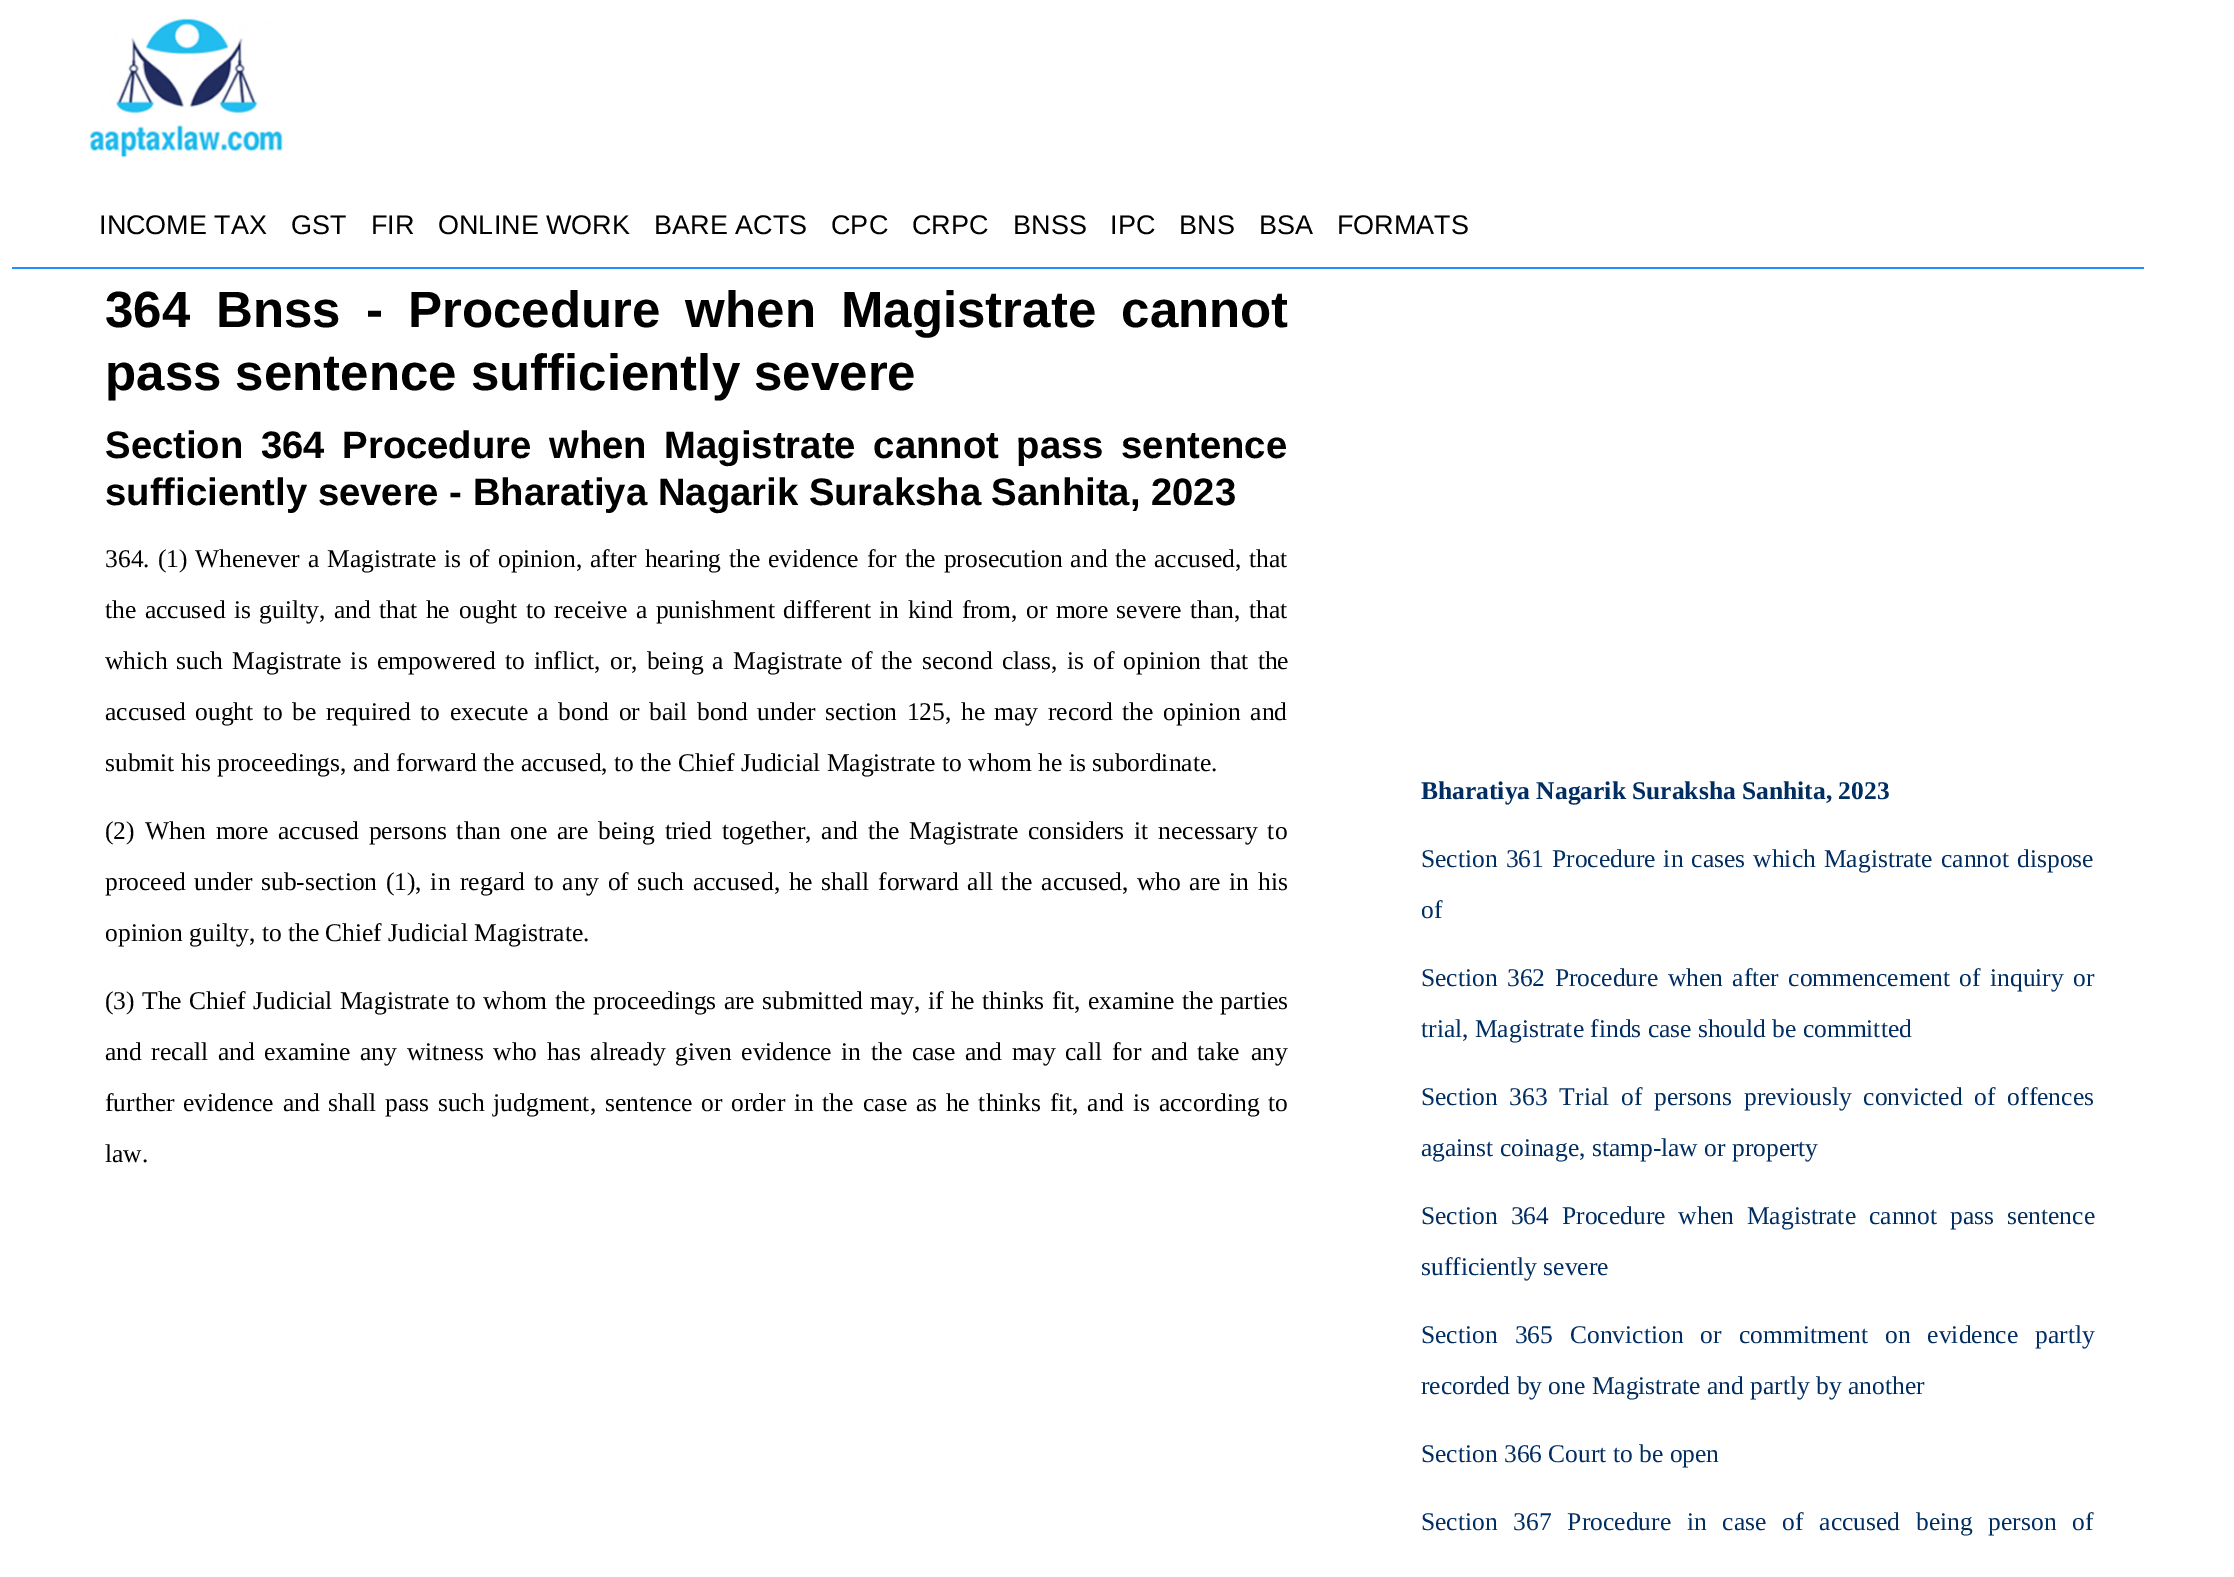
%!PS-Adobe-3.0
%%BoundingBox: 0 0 2234 1577
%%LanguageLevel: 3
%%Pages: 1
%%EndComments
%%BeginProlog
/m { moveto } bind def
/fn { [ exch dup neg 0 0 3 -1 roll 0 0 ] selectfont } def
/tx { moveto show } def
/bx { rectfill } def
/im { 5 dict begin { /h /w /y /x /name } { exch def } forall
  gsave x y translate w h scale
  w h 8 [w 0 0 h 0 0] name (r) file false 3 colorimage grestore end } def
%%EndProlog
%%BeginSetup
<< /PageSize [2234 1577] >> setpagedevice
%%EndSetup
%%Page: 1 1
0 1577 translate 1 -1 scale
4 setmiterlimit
1 setgray
0 0 2234 1577 bx
0.118 0.565 1 setrgbcolor
12 267 2132 2 bx
(image0.raw) 87 18 197 140 im
/LiberationSans-Regular 27 fn
0 setgray
(INCOME TAX) 99 234 tx
(GST) 291 234 tx
(FIR) 371 234 tx
(ONLINE WORK) 438 234 tx
(BARE ACTS) 654 234 tx
(CPC) 831 234 tx
(CRPC) 912 234 tx
(BNSS) 1013 234 tx
(IPC) 1110 234 tx
(BNS) 1179 234 tx
(BSA) 1259 234 tx
(FORMATS) 1337 234 tx
/LiberationSans-Bold 51 fn
(364) 105 327 tx
216 327 m 11 0 32 (Bnss - Procedure when Magistrate cannot) widthshow
(pass sentence sufficiently severe) 105 390 tx
/LiberationSans-Bold 38.25 fn
105 458 m 7 0 32 (Section 364 Procedure when Magistrate cannot pass sentence) widthshow
(sufficiently severe - Bharatiya Nagarik Suraksha Sanhita, 2023) 105 505 tx
/LiberationSerif-Regular 25.5 fn
105 567 m 1.5 0 32 (364. \(1\) Whenever a Magistrate is of opinion, after hearing the evidence) widthshow
867 567 m 1.5 0 32 (for the prosecution and the accused, that) widthshow
105 618 m 2.1 0 32 (the accused is guilty, and that he) widthshow
459 618 m 2.1 0 32 (ought to receive a punishment different in kind from, or more severe than,) widthshow
(that) 1249 618 tx
105 669 m 2.75 0 32 (which such Magistrate is empowered to inflict, or, being a Magistrate) widthshow
851 669 m 2.75 0 32 (of the second class, is of opinion that the) widthshow
105 720 m 3.1 0 32 (accused ought to be required to) widthshow
450 720 m 3.1 0 32 (execute a bond or bail bond under section 125, he may record the opinion and) widthshow
(submit his proceedings, and forward the accused, to the Chief Judicial Magistrate to whom he is subordinate.) 105 771 tx
105 839 m 3.6 0 32 (\(2\) When more accused persons than one are being tried together, and the) widthshow
909 839 m 3.6 0 32 (Magistrate considers it necessary to) widthshow
105 890 m 2.25 0 32 (proceed under sub-section \(1\), in) widthshow
460 890 m 2.25 0 32 (regard to any of such accused, he shall forward all the accused, who are in) widthshow
(his) 1258 890 tx
(opinion guilty, to the Chief Judicial Magistrate.) 105 941 tx
105 1009 m 1 0 32 (\(3\) The Chief Judicial Magistrate to whom the proceedings are submitted) widthshow
870 1009 m 1 0 32 (may, if he thinks fit, examine the parties) widthshow
105 1060 m 3.25 0 32 (and recall and examine any) widthshow
407 1060 m 3.25 0 32 (witness who has already given evidence in the case and may call for and take) widthshow
(any) 1251 1060 tx
105 1111 m 2.4 0 32 (further evidence and shall pass such judgment, sentence or order in the) widthshow
863 1111 m 2.4 0 32 (case as he thinks fit, and is according to) widthshow
(law.) 105 1162 tx
/LiberationSerif-Bold 25.5 fn
0 0.176 0.384 setrgbcolor
(Bharatiya Nagarik Suraksha Sanhita, 2023) 1421 799 tx
/LiberationSerif-Regular 25.5 fn
1421 867 m 1.75 0 32 (Section 361 Procedure in cases which Magistrate cannot dispose) widthshow
(of) 1421 918 tx
1421 986 m 3.1 0 32 (Section 362 Procedure when after commencement of inquiry or) widthshow
(trial, Magistrate finds case should be committed) 1421 1037 tx
1421 1105 m 5.5 0 32 (Section 363 Trial of persons previously convicted of offences) widthshow
(against coinage, stamp-law or property) 1421 1156 tx
1421 1224 m 6.75 0 32 (Section 364 Procedure when Magistrate cannot pass sentence) widthshow
(sufficiently severe) 1421 1275 tx
1421 1343 m 10.75 0 32 (Section 365 Conviction or commitment on evidence partly) widthshow
(recorded by one Magistrate and partly by another) 1421 1394 tx
(Section 366 Court to be open) 1421 1462 tx
1421 1530 m 9.5 0 32 (Section 367 Procedure in case of accused being person of) widthshow
showpage
%%EOF
